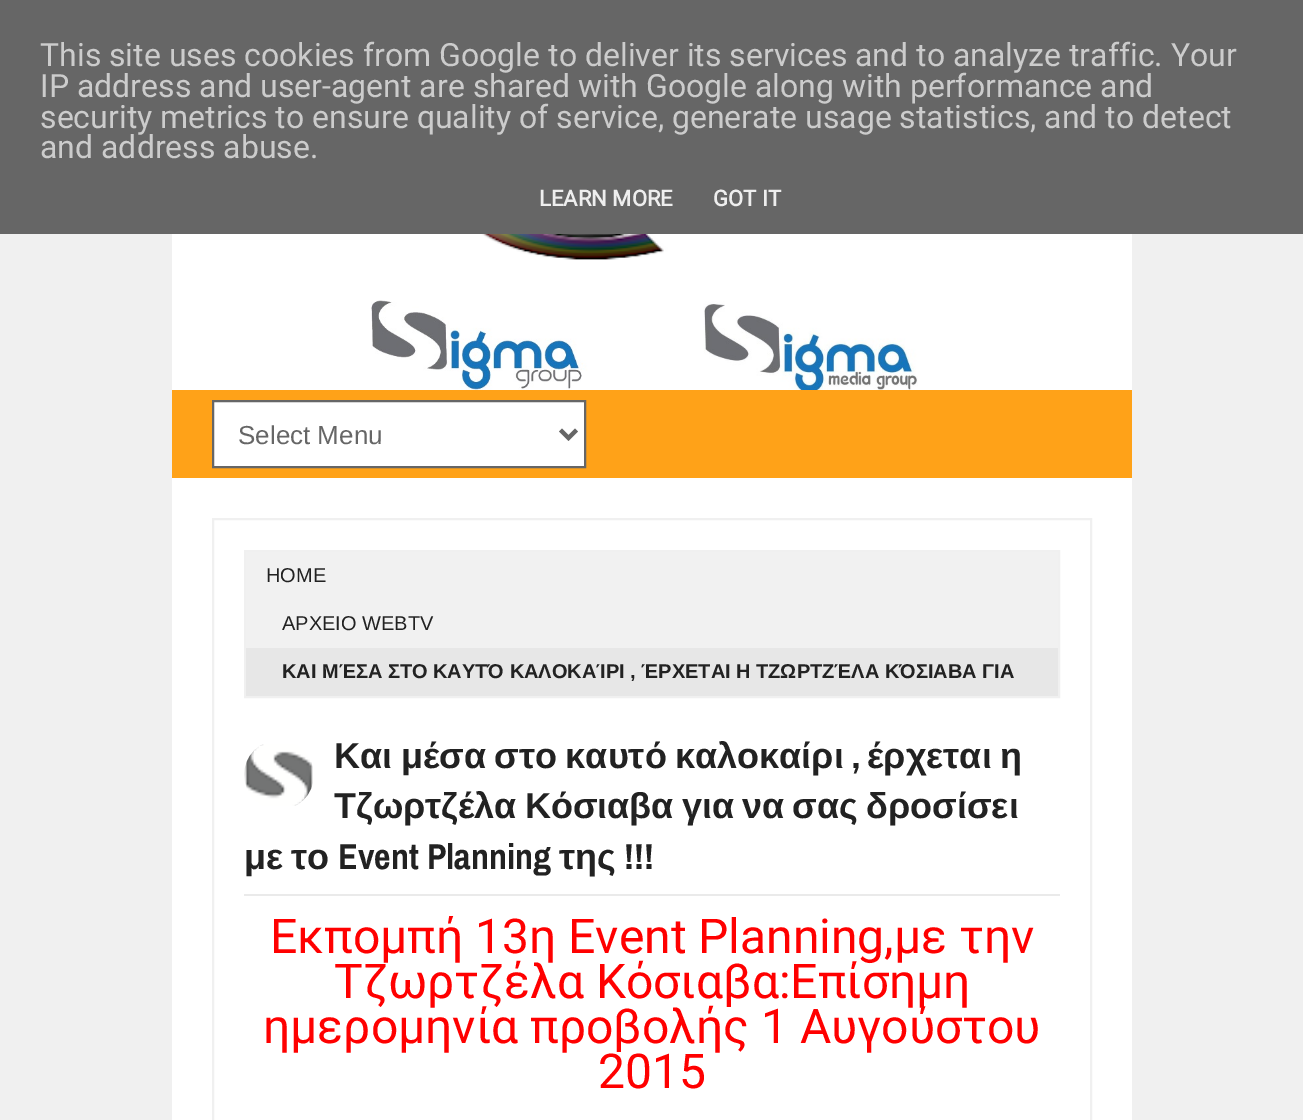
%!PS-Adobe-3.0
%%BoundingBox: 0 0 1303 1120
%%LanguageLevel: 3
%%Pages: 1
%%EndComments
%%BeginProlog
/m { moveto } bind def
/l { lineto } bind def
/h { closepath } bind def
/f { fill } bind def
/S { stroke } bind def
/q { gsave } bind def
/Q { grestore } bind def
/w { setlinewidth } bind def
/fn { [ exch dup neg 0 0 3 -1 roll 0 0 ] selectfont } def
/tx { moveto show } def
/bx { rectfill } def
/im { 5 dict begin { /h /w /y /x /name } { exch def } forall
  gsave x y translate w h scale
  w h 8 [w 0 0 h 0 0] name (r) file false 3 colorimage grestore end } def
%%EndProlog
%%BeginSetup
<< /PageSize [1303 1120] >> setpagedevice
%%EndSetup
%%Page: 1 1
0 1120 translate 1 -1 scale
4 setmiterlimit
0.941 setgray
0 0 1303 1120 bx
0.4 setgray
0 0 1303 234 bx
/Roboto-Regular 32 fn
0.8 setgray
(This site uses cookies from Google to deliver its services and to analyze traffic. Your) 40 66 tx
(IP address and user-agent are shared with Google along with performance and) 40 97 tx
(security metrics to ensure quality of service, generate usage statistics, and to detect) 40 128 tx
(and address abuse.) 40 158 tx
/Roboto-Bold 22 fn
0.933 setgray
(LEARN MORE) 539 206 tx
(GOT IT) 713 206 tx
1 setgray
172 234 960 886 bx
(image0.raw) 451 234 468 26 im
(image1.raw) 371 300 547 90 im
1 0.635 0.094 setrgbcolor
172 390 960 88 bx
1 setgray
213 401 m 585 401 l 585 467 l 213 467 l h q f Q
0.4 setgray
2 w
S
4 w
560.5 430 m 568.5 438 l 576.5 430 l S
/LiberationSans-Regular 26 fn
(Select Menu) 238 444 tx
0.941 setgray
2 w
213 519 878 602 rectstroke
245 551 814 146 rectstroke
0.945 setgray
246 552 812 96 bx
/LiberationSans-Regular 20 fn
0.133 setgray
(HOME) 266 582 tx
(ΑΡΧΕΙΟ WEBTV) 282 630 tx
0.906 setgray
246 648 812 48 bx
/LiberationSans-Bold 20 fn
0.133 setgray
(ΚΑΙ ΜΈΣΑ ΣΤΟ ΚΑΥΤΌ ΚΑΛΟΚΑΊΡΙ , ΈΡΧΕΤΑΙ Η ΤΖΩΡΤΖΈΛΑ ΚΌΣΙΑΒΑ ΓΙΑ) 282 678 tx
0.918 setgray
244 894 816 2 bx
(image2.raw) 244 744 69 62 im
/LiberationSans-Bold 36 fn
0.133 setgray
334 768 m -1.5 0 32 (Και μέσα στο καυτό καλοκαίρι) widthshow
/ArchivoNarrow-Bold 36 fn
(,) 852 768 tx
/LiberationSans-Bold 36 fn
867 768 m -1.5 0 32 (έρχεται η) widthshow
334 818 m -1.75 0 32 (Τζωρτζέλα Κόσιαβα για να σας δροσίσει) widthshow
(με) 244 869 tx
(το) 291 869 tx
/ArchivoNarrow-Bold 36 fn
(Event Planning) 338 869 tx
/LiberationSans-Bold 36 fn
(της) 559 869 tx
/ArchivoNarrow-Bold 36 fn
(!!!) 624 869 tx
q
244 916 816 178 rectclip
/Roboto-Regular 48 fn
1 0 0 setrgbcolor
(Εκπομπή 13η Event Planning,με την) 270 953 tx
Q
/Roboto-Regular 48 fn
1 0 0 setrgbcolor
(Τζωρτζέλα Κόσιαβα:Επίσημη) 334 998 tx
(ημερομηνία προβολής 1 Αυγούστου) 263 1043 tx
(2015) 598 1088 tx
showpage
%%EOF
